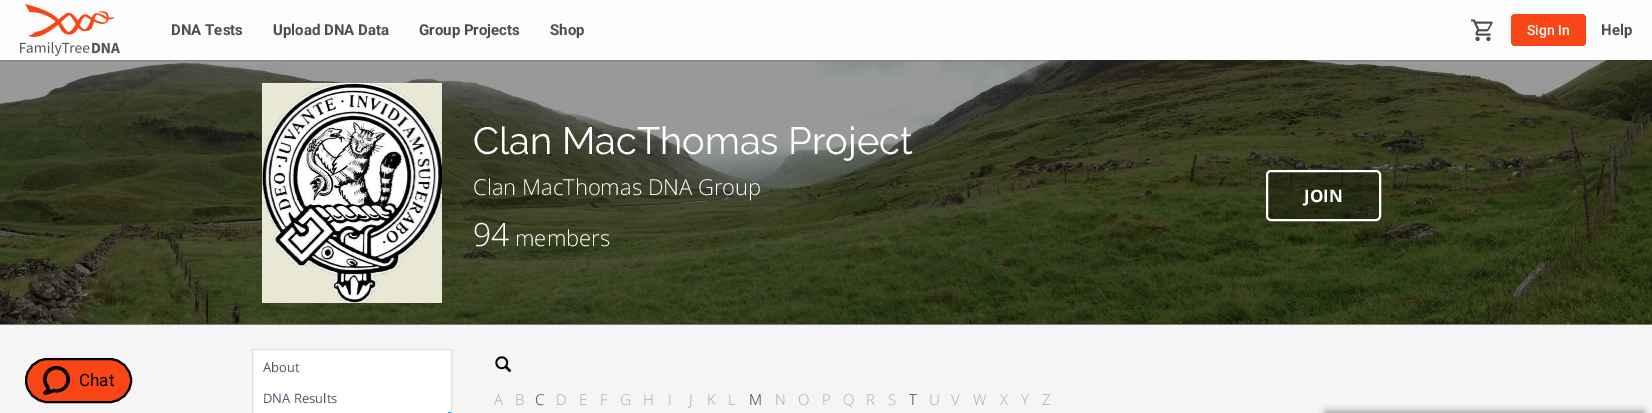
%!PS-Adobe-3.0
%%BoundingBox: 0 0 1652 413
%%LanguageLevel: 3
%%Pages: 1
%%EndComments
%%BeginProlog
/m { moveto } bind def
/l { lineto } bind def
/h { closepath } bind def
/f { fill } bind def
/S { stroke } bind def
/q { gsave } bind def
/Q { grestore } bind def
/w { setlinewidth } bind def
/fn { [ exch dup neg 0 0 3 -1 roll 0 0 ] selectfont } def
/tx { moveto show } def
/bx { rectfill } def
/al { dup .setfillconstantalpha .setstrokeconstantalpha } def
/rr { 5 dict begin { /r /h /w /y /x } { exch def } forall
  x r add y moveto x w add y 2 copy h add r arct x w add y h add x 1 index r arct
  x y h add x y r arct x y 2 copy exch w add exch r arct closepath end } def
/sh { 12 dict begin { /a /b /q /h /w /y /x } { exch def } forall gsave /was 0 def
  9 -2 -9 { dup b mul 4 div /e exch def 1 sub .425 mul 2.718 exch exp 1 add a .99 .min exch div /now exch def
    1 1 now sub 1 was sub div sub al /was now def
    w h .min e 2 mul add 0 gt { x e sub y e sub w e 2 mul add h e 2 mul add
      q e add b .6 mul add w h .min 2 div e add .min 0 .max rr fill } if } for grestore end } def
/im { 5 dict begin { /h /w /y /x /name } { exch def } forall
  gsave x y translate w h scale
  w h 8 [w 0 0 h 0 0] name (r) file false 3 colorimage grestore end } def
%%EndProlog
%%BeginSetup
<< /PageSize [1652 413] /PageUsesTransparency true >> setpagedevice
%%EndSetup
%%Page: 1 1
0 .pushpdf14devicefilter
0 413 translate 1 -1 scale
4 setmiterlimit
0.961 setgray
0 0 1652 413 bx
(image3.raw) 0 60 1652 264 im
0.129 setgray
0 1 1652 60 0 1 0.21 sh
0.992 setgray
0 0 1652 60 bx
(image0.raw) 20 4 100 52 im
/Roboto-Bold 15 fn
0.302 setgray
(DNA Tests) 171 35 tx
(Upload DNA Data) 273 35 tx
(Group Projects) 419 35 tx
(Shop) 550 35 tx
(image1.raw) 1471 19 22 22 im
0.98 0.275 0.086 setrgbcolor
1511 14 75 32 4 rr f
/Roboto-Medium 14 fn
1 setgray
(Sign In) 1527 35 tx
/Roboto-Bold 15 fn
0.302 setgray
(Help) 1601 35 tx
0.98 0.275 0.086 setrgbcolor
26 359 105 43 21.5 rr q f Q
0 setgray
2 w
S
(image2.raw) 43 366 27 29 im
/Roboto-Regular 17 fn
(Chat) 79 386 tx
0.475 setgray
0 324 1652 1 bx
(image4.raw) 262 83 180 220 im
/Raleway-Regular 38 fn
1 setgray
(Clan MacThomas Project) 473 154 tx
/OpenSans-Light 22 fn
(Clan MacThomas DNA Group) 473 195 tx
/OpenSans-Light 32 fn
(94) 473 246 tx
/OpenSans-Light 22 fn
(members) 515 246 tx
0.25 al
0 setgray
1267 171 113 49 4 rr f
1 al
1 setgray
1267 171 113 49 4 rr S
/OpenSans-Bold 17 fn
(JOIN) 1304 202 tx
252.5 349.5 m 451.5 349.5 l 451.5 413.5 l 252.5 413.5 l h q f Q
0.875 setgray
1 w
S
/OpenSans-Regular 13 fn
0.302 0.337 0.404 setrgbcolor
(About) 263 372 tx
(DNA Results) 263 403 tx
0 0.588 1 setrgbcolor
448 412 3 1 bx
(image5.raw) 495 356 17 17 im
/OpenSans-Light 15 fn
0.667 setgray
(A) 494 405 tx
(B) 515 405 tx
0.2 setgray
(C) 535 405 tx
0.667 setgray
(D) 556 405 tx
(E) 579 405 tx
(F) 600 405 tx
(G) 620 405 tx
(H) 643 405 tx
(I) 668 405 tx
(J) 689 405 tx
(K) 707 405 tx
(L) 728 405 tx
0.2 setgray
(M) 749 405 tx
0.667 setgray
(N) 775 405 tx
(O) 798 405 tx
(P) 822 405 tx
(Q) 843 405 tx
(R) 866 405 tx
(S) 888 405 tx
0.2 setgray
(T) 909 405 tx
0.667 setgray
(U) 929 405 tx
(V) 951 405 tx
(W) 973 405 tx
(X) 1000 405 tx
(Y) 1021 405 tx
(Z) 1042 405 tx
0.502 setgray
1326 412 317 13 0 4 1 sh
.poppdf14devicefilter showpage
%%EOF
